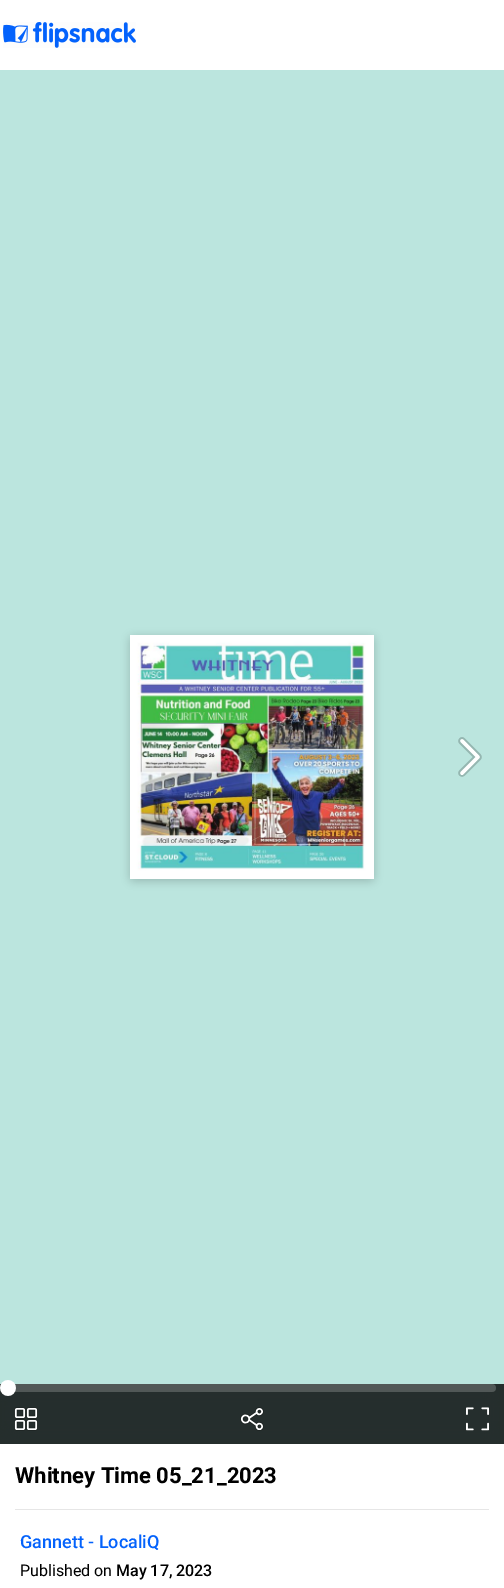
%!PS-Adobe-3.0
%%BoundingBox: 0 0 504 1588
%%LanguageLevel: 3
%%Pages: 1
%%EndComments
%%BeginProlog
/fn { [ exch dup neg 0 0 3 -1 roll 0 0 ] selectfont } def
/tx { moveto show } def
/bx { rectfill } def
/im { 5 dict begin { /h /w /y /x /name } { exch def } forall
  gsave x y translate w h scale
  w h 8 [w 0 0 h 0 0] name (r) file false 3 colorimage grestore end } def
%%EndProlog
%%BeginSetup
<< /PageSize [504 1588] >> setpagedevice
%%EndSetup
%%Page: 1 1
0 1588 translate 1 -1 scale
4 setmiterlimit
1 setgray
0 0 504 1588 bx
(image0.raw) 3 22 133 26 im
(image1.raw) 0 70 504 1374 im
/Roboto-Bold 22 fn
0 setgray
(Whitney Time 05_21_2023) 15 1483 tx
0.902 setgray
15 1509 474 1 bx
/Roboto-Medium 18 fn
0.012 0.384 0.988 setrgbcolor
(Gannett - LocaliQ) 20 1548 tx
/Roboto-Regular 16 fn
0 setgray
(Published on) 20 1576 tx
/Roboto-Medium 16 fn
(May 17, 2023) 116 1576 tx
showpage
%%EOF
